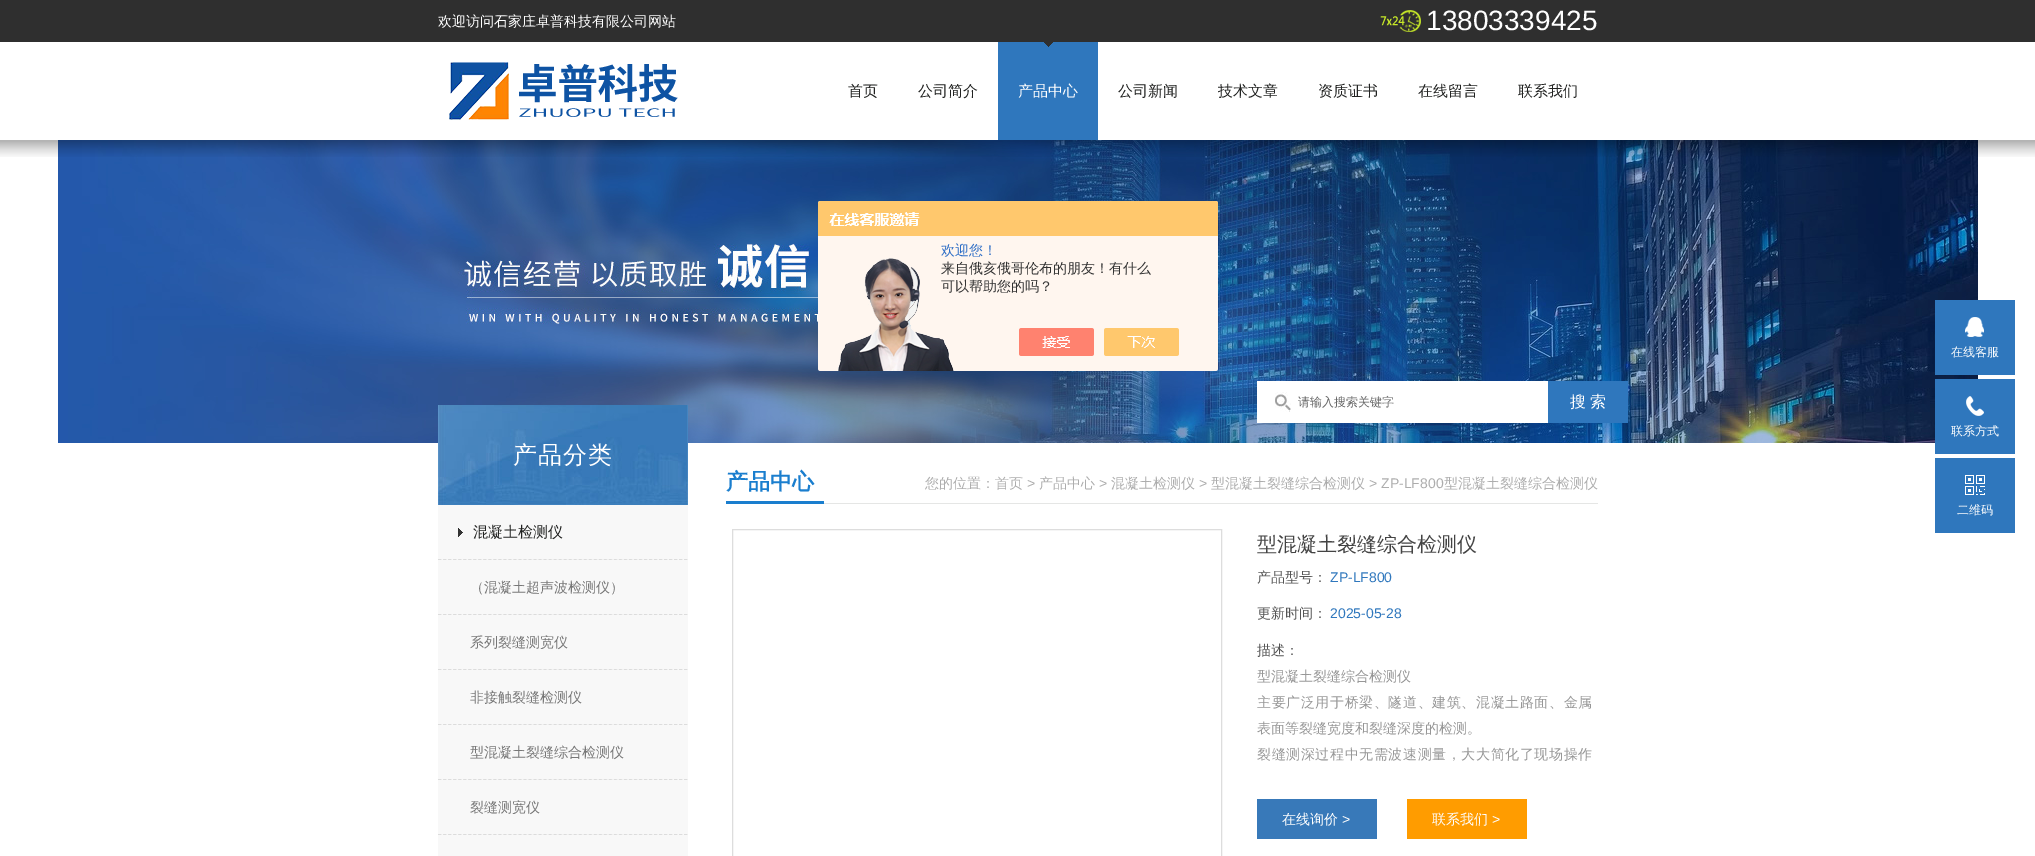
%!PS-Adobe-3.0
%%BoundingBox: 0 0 2035 856
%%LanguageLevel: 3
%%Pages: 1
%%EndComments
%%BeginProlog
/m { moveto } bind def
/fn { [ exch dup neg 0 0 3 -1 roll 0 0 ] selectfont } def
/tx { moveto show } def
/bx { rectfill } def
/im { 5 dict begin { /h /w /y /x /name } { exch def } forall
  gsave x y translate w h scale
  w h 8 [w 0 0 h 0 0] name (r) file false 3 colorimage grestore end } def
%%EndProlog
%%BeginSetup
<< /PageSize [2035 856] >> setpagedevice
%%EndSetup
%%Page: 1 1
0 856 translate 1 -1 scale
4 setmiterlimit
1 setgray
0 0 2035 856 bx
0.184 setgray
0 0 2035 42 bx
/WenQuanYiZenHei-Medium 14 fn
1 setgray
(欢迎访问石家庄卓普科技有限公司网站) 438 26 tx
(image0.raw) 1380 10 41 22 im
/LiberationSans-Regular 28 fn
(13803339425) 1426 30 tx
(image5.raw) 58 140 1920 303 im
(image1.raw) 0 140 2035 17 im
(image2.raw) 449 62 229 58 im
/WenQuanYiZenHei-Medium 15 fn
0.133 0.137 0.133 setrgbcolor
(首页) 848 96 tx
(公司简介) 918 96 tx
0.184 0.467 0.741 setrgbcolor
998 42 100 98 bx
(image3.raw) 1044 42 9 5 im
1 setgray
(产品中心) 1018 96 tx
0.133 0.137 0.133 setrgbcolor
(公司新闻) 1118 96 tx
(技术文章) 1218 96 tx
(资质证书) 1318 96 tx
(在线留言) 1418 96 tx
(联系我们) 1518 96 tx
(image4.raw) 818 201 400 170 im
/WenQuanYiZenHei-Medium 14 fn
0.18 0.431 0.776 setrgbcolor
(欢迎您！) 941 255 tx
0.2 setgray
(来自俄亥俄哥伦布的朋友！有什么) 941 273 tx
(可以帮助您的吗？) 941 291 tx
1 setgray
1257 381 291 42 bx
(image6.raw) 1275 392 16 20 im
/WenQuanYiZenHei-Medium 12 fn
0.4 setgray
(请输入搜索关键字) 1298 406 tx
0.184 0.467 0.741 setrgbcolor
1548 381 80 42 bx
/WenQuanYiZenHei-Medium 16 fn
1 setgray
1570 407 m -1 0 32 (搜 索) widthshow
0.184 0.467 0.741 setrgbcolor
1935 300 80 75 bx
(image7.raw) 1965 317 19 20 im
/WenQuanYiZenHei-Medium 12 fn
1 setgray
(在线客服) 1951 356 tx
0.184 0.467 0.741 setrgbcolor
1935 379 80 75 bx
(image8.raw) 1966 396 18 20 im
1 setgray
(联系方式) 1951 435 tx
0.184 0.467 0.741 setrgbcolor
1935 458 80 75 bx
(image9.raw) 1965 475 20 20 im
1 setgray
(二维码) 1957 514 tx
0.973 setgray
438 505 250 351 bx
(image10.raw) 438 405 250 100 im
/WenQuanYiZenHei-Medium 24 fn
1 setgray
513 463 m 1 0 (产品分类) ashow
(image11.raw) 438 559 250 1 im
(image12.raw) 458 528 5 9 im
/WenQuanYiZenHei-Medium 15 fn
0.133 0.137 0.133 setrgbcolor
(混凝土检测仪) 473 537 tx
(image11.raw) 438 614 250 1 im
/WenQuanYiZenHei-Medium 14 fn
0.467 setgray
(（混凝土超声波检测仪）) 470 592 tx
(image11.raw) 438 669 250 1 im
(系列裂缝测宽仪) 470 647 tx
(image11.raw) 438 724 250 1 im
(非接触裂缝检测仪) 470 702 tx
(image11.raw) 438 779 250 1 im
(型混凝土裂缝综合检测仪) 470 757 tx
(image11.raw) 438 834 250 1 im
(裂缝测宽仪) 470 812 tx
0.898 0.902 0.898 setrgbcolor
824 503 774 1 bx
0.102 0.494 0.808 setrgbcolor
726 501 98 3 bx
/WenQuanYiZenHei-Bold 22 fn
(产品中心) 726 489 tx
/WenQuanYiZenHei-Medium 14 fn
0.678 setgray
(您的位置：首页) 925 488 tx
/LiberationSans-Regular 14 fn
(>) 1027 488 tx
/WenQuanYiZenHei-Medium 14 fn
(产品中心) 1039 488 tx
/LiberationSans-Regular 14 fn
(>) 1099 488 tx
/WenQuanYiZenHei-Medium 14 fn
(混凝土检测仪) 1111 488 tx
/LiberationSans-Regular 14 fn
(>) 1199 488 tx
/WenQuanYiZenHei-Medium 14 fn
(型混凝土裂缝综合检测仪) 1211 488 tx
/LiberationSans-Regular 14 fn
(> ZP-LF800) 1369 488 tx
/WenQuanYiZenHei-Medium 14 fn
(型混凝土裂缝综合检测仪) 1444 488 tx
0.867 setgray
732.5 529.5 489 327 rectstroke
/WenQuanYiZenHei-Medium 20 fn
0.267 setgray
(型混凝土裂缝综合检测仪) 1257 551 tx
/WenQuanYiZenHei-Medium 14 fn
0.333 setgray
(产品型号：) 1257 582 tx
/LiberationSans-Regular 14 fn
0.184 0.467 0.741 setrgbcolor
(ZP-LF800) 1330 582 tx
/WenQuanYiZenHei-Medium 14 fn
0.333 setgray
(更新时间：) 1257 618 tx
/LiberationSans-Regular 14 fn
0.184 0.467 0.741 setrgbcolor
(2025-05-28) 1330 618 tx
/WenQuanYiZenHei-Medium 14 fn
0.333 setgray
(描述：) 1257 655 tx
0.592 setgray
(型混凝土裂缝综合检测仪) 1257 681 tx
1257 707 m 0.6 0 (主要广泛用于桥梁、隧道、建筑、混凝土路面、金属) ashow
(表面等裂缝宽度和裂缝深度的检测。) 1257 733 tx
1257 759 m 0.6 0 (裂缝测深过程中无需波速测量，大大简化了现场操作) ashow
0.22 0.475 0.725 setrgbcolor
1257 799 120 40 bx
1 setgray
(在线询价) 1282 824 tx
/LiberationSans-Regular 14 fn
(>) 1342 824 tx
1 0.612 0 setrgbcolor
1407 799 120 40 bx
/WenQuanYiZenHei-Medium 14 fn
1 setgray
(联系我们) 1432 824 tx
/LiberationSans-Regular 14 fn
(>) 1492 824 tx
showpage
%%EOF
